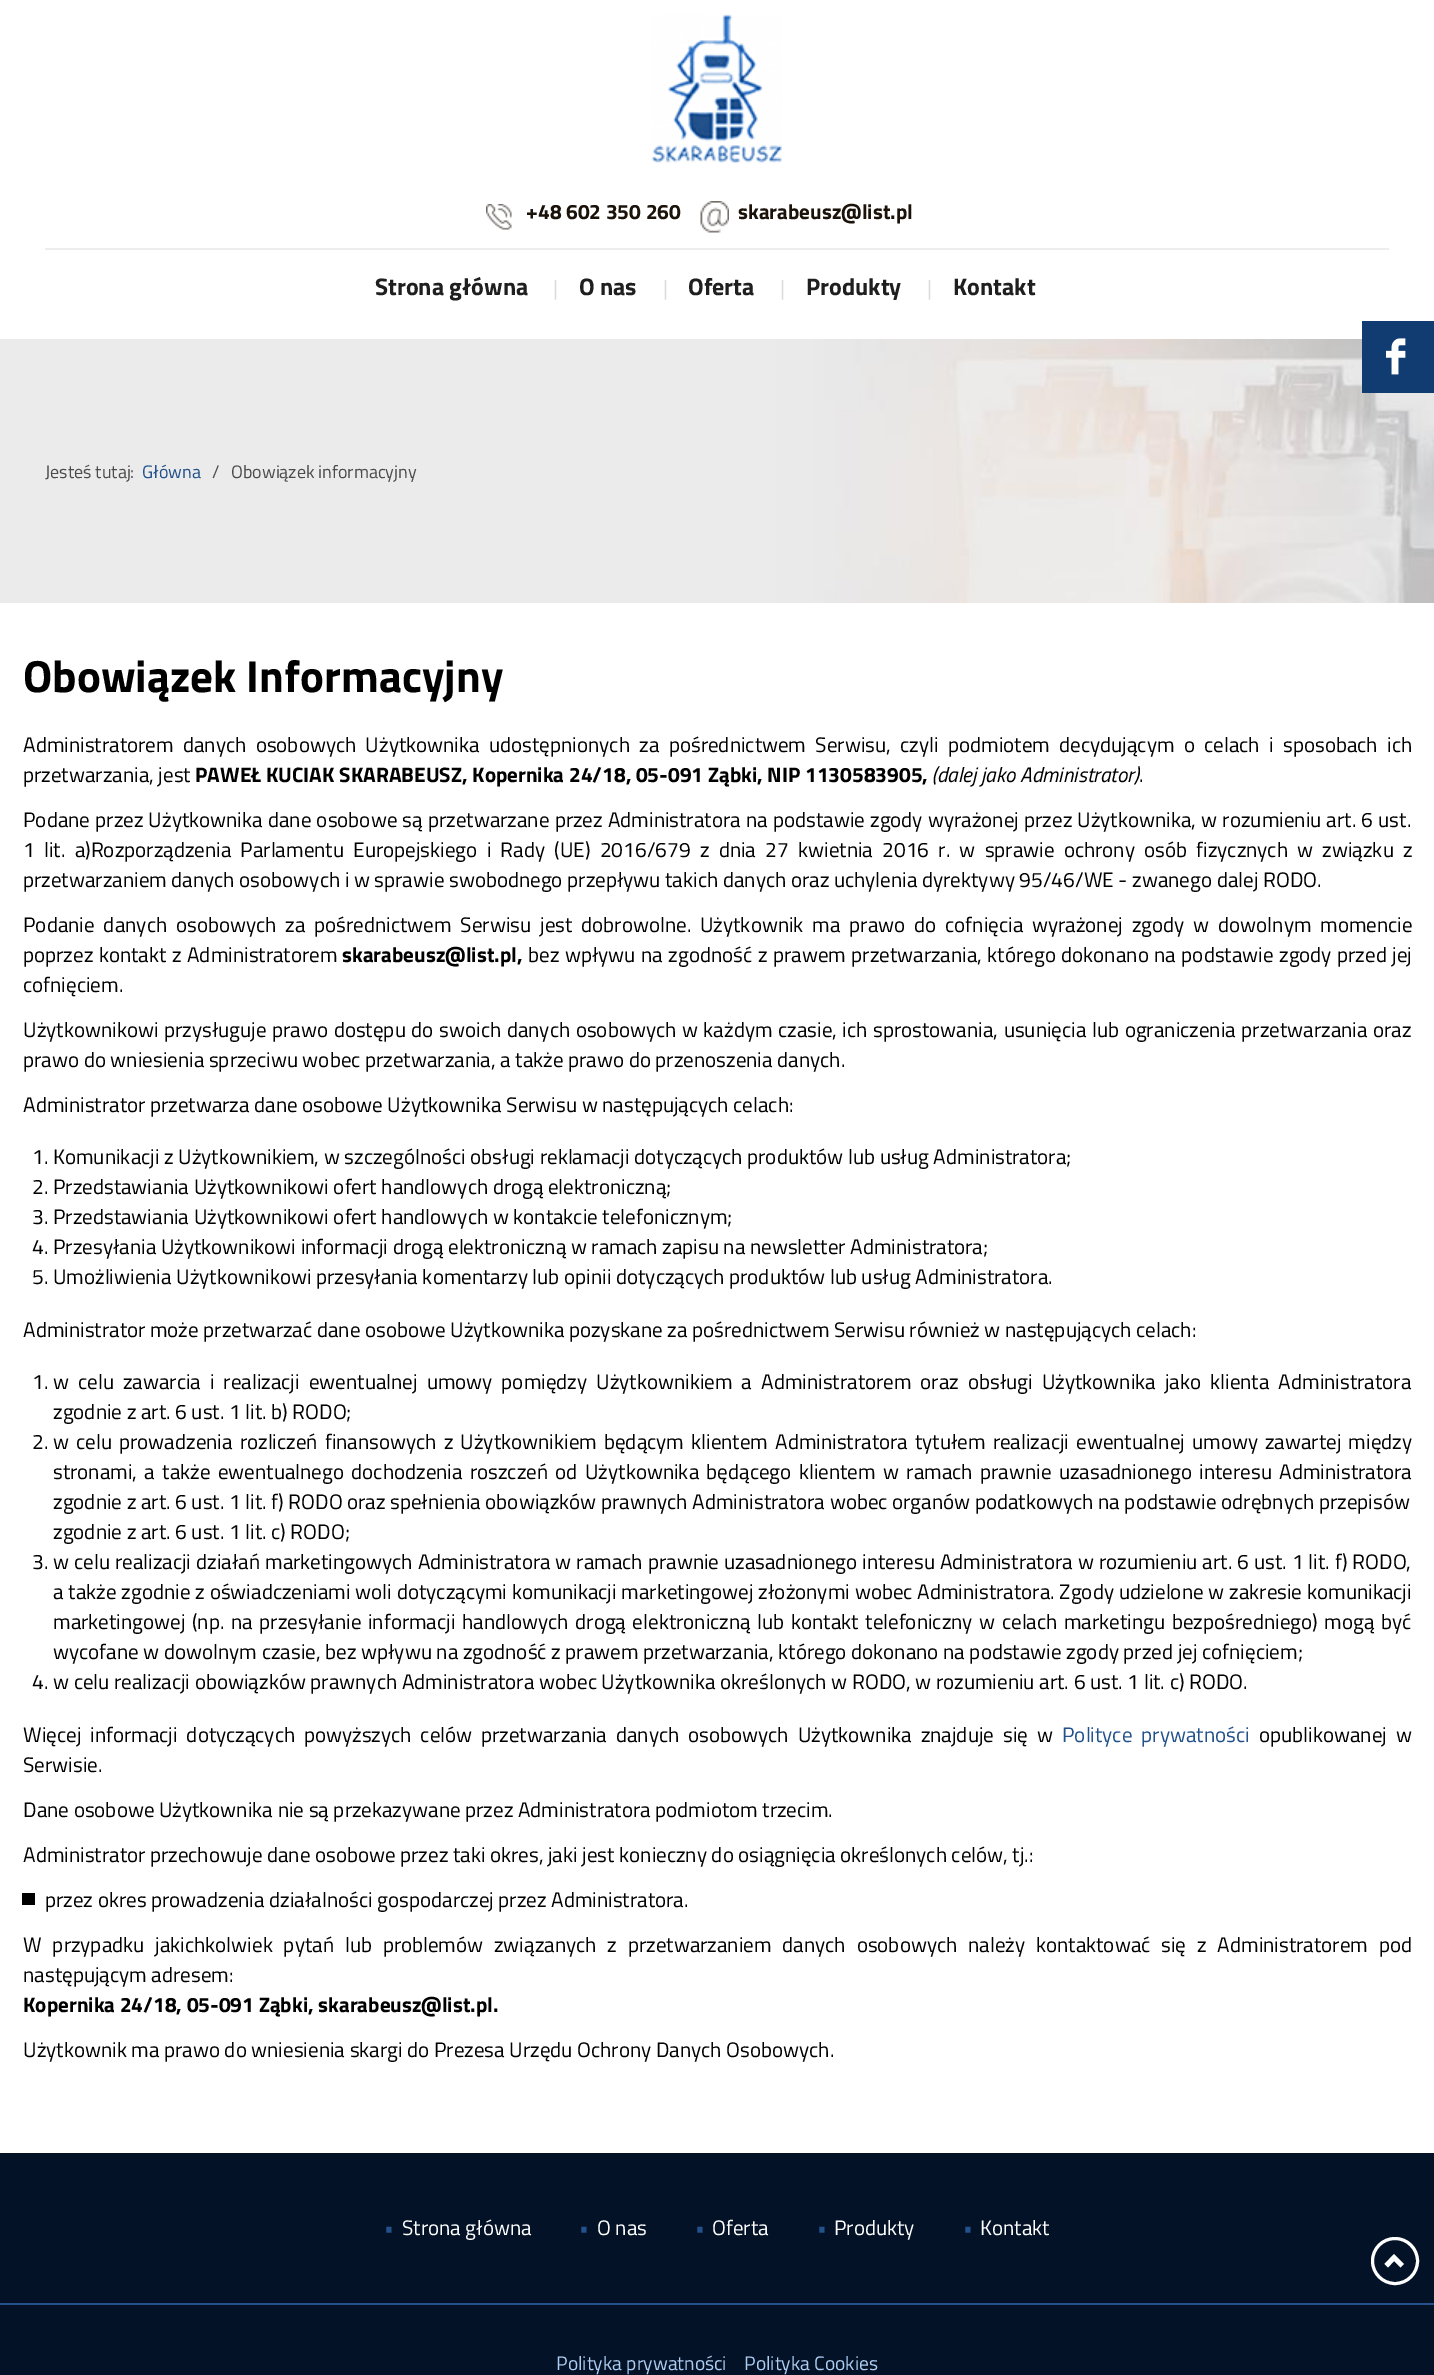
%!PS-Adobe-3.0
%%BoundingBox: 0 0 1434 2375
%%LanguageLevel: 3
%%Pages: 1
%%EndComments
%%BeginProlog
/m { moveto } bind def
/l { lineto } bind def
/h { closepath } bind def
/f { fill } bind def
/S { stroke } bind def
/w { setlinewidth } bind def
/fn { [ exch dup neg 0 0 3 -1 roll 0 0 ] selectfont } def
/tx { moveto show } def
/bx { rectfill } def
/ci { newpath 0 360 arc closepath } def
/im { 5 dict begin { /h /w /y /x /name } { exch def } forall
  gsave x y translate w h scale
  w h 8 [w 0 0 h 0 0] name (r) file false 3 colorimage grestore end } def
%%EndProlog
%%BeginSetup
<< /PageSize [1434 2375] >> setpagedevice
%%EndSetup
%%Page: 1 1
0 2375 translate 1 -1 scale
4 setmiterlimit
1 setgray
0 0 1434 2375 bx
(image0.raw) 651 14 131 150 im
0.929 setgray
45 248 1344 2 bx
(image1.raw) 486 204 26 26 im
/TitilliumWeb-Bold 21 fn
0.106 0.071 0.039 setrgbcolor
(+48 602 350 260) 526 219 tx
(image2.raw) 700 201 29 32 im
(skarabeusz@list.pl) 738 219 tx
/TitilliumWeb-Bold 24 fn
0.122 setgray
(Strona główna) 375 295 tx
/TitilliumWeb-Regular 21 fn
0.855 setgray
(|) 553 295 tx
/TitilliumWeb-Bold 24 fn
0.122 setgray
(O nas) 579 295 tx
/TitilliumWeb-Regular 21 fn
0.855 setgray
(|) 663 295 tx
/TitilliumWeb-Bold 24 fn
0.122 setgray
(Oferta) 688 295 tx
/TitilliumWeb-Regular 21 fn
0.855 setgray
(|) 780 295 tx
/TitilliumWeb-Bold 24 fn
0.122 setgray
(Produkty) 806 295 tx
/TitilliumWeb-Regular 21 fn
0.855 setgray
(|) 927 295 tx
/TitilliumWeb-Bold 24 fn
0.122 setgray
(Kontakt) 953 295 tx
(image3.raw) 0 339 1434 264 im
/TitilliumWeb-Regular 18 fn
0.298 setgray
(Jesteś tutaj:) 45 478 tx
0.133 0.318 0.545 setrgbcolor
(Główna) 142 478 tx
0.298 setgray
(/) 212 478 tx
(Obowiązek informacyjny) 231 478 tx
/TitilliumWeb-Bold 45 fn
0 setgray
(Obowiązek Informacyjny) 23 692 tx
/TitilliumWeb-Regular 21 fn
23 752 m 4.75 0 32 (Administratorem danych osobowych Użytkownika udostępnionych za pośrednictwem Serwisu, czyli podmiotem decydującym o celach i sposobach ich) widthshow
(przetwarzania, jest) 23 782 tx
/TitilliumWeb-Bold 21 fn
(PAWEŁ KUCIAK SKARABEUSZ, Kopernika 24/18, 05-091 Ząbki, NIP 1130583905,) 195 782 tx
/TitilliumWeb-Italic 21 fn
(\(dalej jako Administrator\)) 932 782 tx
/TitilliumWeb-Regular 21 fn
(.) 1139 782 tx
23 827 m 0.6 0 32 (Podane przez Użytkownika dane osobowe są przetwarzane przez Administratora na podstawie zgody wyrażonej przez Użytkownika, w rozumieniu art. 6 ust.) widthshow
23 857 m 4.6 0 32 (1 lit. a\)Rozporządzenia Parlamentu Europejskiego i Rady \(UE\) 2016/679 z dnia 27 kwietnia 2016 r. w sprawie ochrony osób fizycznych w związku z) widthshow
(przetwarzaniem danych osobowych i w sprawie swobodnego przepływu takich danych oraz uchylenia dyrektywy 95/46/WE - zwanego dalej RODO.) 23 887 tx
23 932 m 4.25 0 32 (Podanie danych osobowych za pośrednictwem Serwisu jest dobrowolne. Użytkownik ma prawo do cofnięcia wyrażonej zgody w dowolnym momencie) widthshow
23 962 m 0.9 0 32 (poprzez kontakt z Administratorem) widthshow
/TitilliumWeb-Bold 21 fn
(skarabeusz@list.pl,) 342 962 tx
/TitilliumWeb-Regular 21 fn
528 962 m 0.9 0 32 (bez wpływu na zgodność z prawem przetwarzania, którego dokonano na podstawie zgody przed jej) widthshow
(cofnięciem.) 23 992 tx
23 1037 m 1 0 32 (Użytkownikowi przysługuje prawo dostępu do swoich danych osobowych w każdym czasie, ich sprostowania, usunięcia lub ograniczenia przetwarzania oraz) widthshow
(prawo do wniesienia sprzeciwu wobec przetwarzania, a także prawo do przenoszenia danych.) 23 1067 tx
(Administrator przetwarza dane osobowe Użytkownika Serwisu w następujących celach:) 23 1112 tx
(1. Komunikacji z Użytkownikiem, w szczególności obsługi reklamacji dotyczących produktów lub usług Administratora;) 32 1164 tx
(2. Przedstawiania Użytkownikowi ofert handlowych drogą elektroniczną;) 32 1194 tx
(3. Przedstawiania Użytkownikowi ofert handlowych w kontakcie telefonicznym;) 32 1224 tx
(4. Przesyłania Użytkownikowi informacji drogą elektroniczną w ramach zapisu na newsletter Administratora;) 32 1254 tx
(5. Umożliwienia Użytkownikowi przesyłania komentarzy lub opinii dotyczących produktów lub usług Administratora.) 32 1284 tx
(Administrator może przetwarzać dane osobowe Użytkownika pozyskane za pośrednictwem Serwisu również w następujących celach:) 23 1337 tx
(1.) 32 1389 tx
53 1389 m 4.4 0 32 (w celu zawarcia i realizacji ewentualnej umowy pomiędzy Użytkownikiem a Administratorem oraz obsługi Użytkownika jako klienta Administratora) widthshow
(zgodnie z art. 6 ust. 1 lit. b\) RODO;) 53 1419 tx
(2.) 32 1449 tx
53 1449 m 2.5 0 32 (w celu prowadzenia rozliczeń finansowych z Użytkownikiem będącym klientem Administratora tytułem realizacji ewentualnej umowy zawartej między) widthshow
53 1479 m 2.75 0 32 (stronami, a także ewentualnego dochodzenia roszczeń od Użytkownika będącego klientem w ramach prawnie uzasadnionego interesu Administratora) widthshow
(zgodnie z art. 6 ust. 1 lit. f\) RODO oraz spełnienia obowiązków prawnych Administratora wobec organów podatkowych na podstawie odrębnych przepisów) 53 1509 tx
(zgodnie z art. 6 ust. 1 lit. c\) RODO;) 53 1539 tx
(3.) 32 1569 tx
53 1569 m 0.4 0 32 (w celu realizacji działań marketingowych Administratora w ramach prawnie uzasadnionego interesu Administratora w rozumieniu art. 6 ust. 1 lit. f\) RODO,) widthshow
53 1599 m 0.25 0 32 (a także zgodnie z oświadczeniami woli dotyczącymi komunikacji marketingowej złożonymi wobec Administratora. Zgody udzielone w zakresie komunikacji) widthshow
53 1629 m 2 0 32 (marketingowej \(np. na przesyłanie informacji handlowych drogą elektroniczną lub kontakt telefoniczny w celach marketingu bezpośredniego\) mogą być) widthshow
(wycofane w dowolnym czasie, bez wpływu na zgodność z prawem przetwarzania, którego dokonano na podstawie zgody przed jej cofnięciem;) 53 1659 tx
(4. w celu realizacji obowiązków prawnych Administratora wobec Użytkownika określonych w RODO, w rozumieniu art. 6 ust. 1 lit. c\) RODO.) 32 1689 tx
23 1742 m 4.25 0 32 (Więcej informacji dotyczących powyższych celów przetwarzania danych osobowych Użytkownika znajduje się w) widthshow
0.133 0.318 0.545 setrgbcolor
1062 1742 m 4.4 0 32 (Polityce prywatności) widthshow
0 setgray
1259 1742 m 4.25 0 32 (opublikowanej w) widthshow
(Serwisie.) 23 1772 tx
(Dane osobowe Użytkownika nie są przekazywane przez Administratora podmiotom trzecim.) 23 1817 tx
(Administrator przechowuje dane osobowe przez taki okres, jaki jest konieczny do osiągnięcia określonych celów, tj.:) 23 1862 tx
22 1893 13 12 bx
(przez okres prowadzenia działalności gospodarczej przez Administratora.) 45 1907 tx
23 1952 m 6.25 0 32 (W przypadku jakichkolwiek pytań lub problemów związanych z przetwarzaniem danych osobowych należy kontaktować się z Administratorem pod) widthshow
(następującym adresem:) 23 1982 tx
/TitilliumWeb-Bold 21 fn
(Kopernika 24/18, 05-091 Ząbki, skarabeusz@list.pl.) 23 2012 tx
/TitilliumWeb-Regular 21 fn
(Użytkownik ma prawo do wniesienia skargi do Prezesa Urzędu Ochrony Danych Osobowych.) 23 2057 tx
0.012 0.071 0.149 setrgbcolor
0 2153 1434 222 bx
0.133 0.318 0.545 setrgbcolor
0 2303 1434 2 bx
(•) 384 2235 tx
1 setgray
(Strona główna) 402 2235 tx
0.133 0.318 0.545 setrgbcolor
(•) 579 2235 tx
1 setgray
(O nas) 597 2235 tx
0.133 0.318 0.545 setrgbcolor
(•) 695 2235 tx
1 setgray
(Oferta) 712 2235 tx
0.133 0.318 0.545 setrgbcolor
(•) 817 2235 tx
1 setgray
(Produkty) 834 2235 tx
0.133 0.318 0.545 setrgbcolor
(•) 963 2235 tx
1 setgray
(Kontakt) 980 2235 tx
/TitilliumWeb-Regular 19.5 fn
0.678 0.804 0.953 setrgbcolor
(Polityka prywatności) 556 2370 tx
(Polityka Cookies) 744 2370 tx
1 setgray
3 w
1395 2261 22.5 ci S
1404 2264 m 1400.5 2267.5 l 1394 2261 l 1388 2267.5 l 1384.5 2264 l 1394 2254 l h f
0.067 0.235 0.443 setrgbcolor
1362 321 72 72 bx
(image4.raw) 1386 338 20 37 im
showpage
%%EOF
